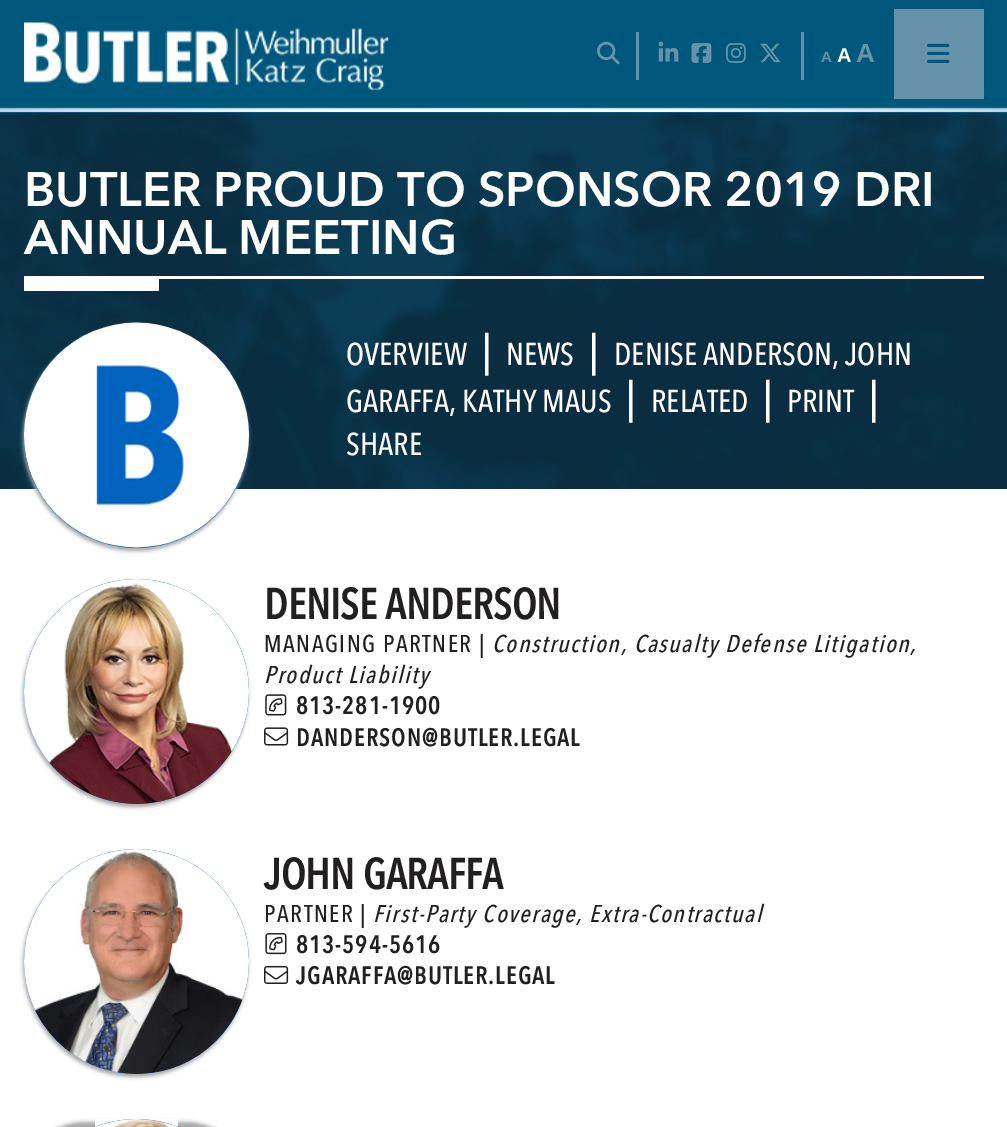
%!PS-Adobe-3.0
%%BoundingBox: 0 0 1007 1127
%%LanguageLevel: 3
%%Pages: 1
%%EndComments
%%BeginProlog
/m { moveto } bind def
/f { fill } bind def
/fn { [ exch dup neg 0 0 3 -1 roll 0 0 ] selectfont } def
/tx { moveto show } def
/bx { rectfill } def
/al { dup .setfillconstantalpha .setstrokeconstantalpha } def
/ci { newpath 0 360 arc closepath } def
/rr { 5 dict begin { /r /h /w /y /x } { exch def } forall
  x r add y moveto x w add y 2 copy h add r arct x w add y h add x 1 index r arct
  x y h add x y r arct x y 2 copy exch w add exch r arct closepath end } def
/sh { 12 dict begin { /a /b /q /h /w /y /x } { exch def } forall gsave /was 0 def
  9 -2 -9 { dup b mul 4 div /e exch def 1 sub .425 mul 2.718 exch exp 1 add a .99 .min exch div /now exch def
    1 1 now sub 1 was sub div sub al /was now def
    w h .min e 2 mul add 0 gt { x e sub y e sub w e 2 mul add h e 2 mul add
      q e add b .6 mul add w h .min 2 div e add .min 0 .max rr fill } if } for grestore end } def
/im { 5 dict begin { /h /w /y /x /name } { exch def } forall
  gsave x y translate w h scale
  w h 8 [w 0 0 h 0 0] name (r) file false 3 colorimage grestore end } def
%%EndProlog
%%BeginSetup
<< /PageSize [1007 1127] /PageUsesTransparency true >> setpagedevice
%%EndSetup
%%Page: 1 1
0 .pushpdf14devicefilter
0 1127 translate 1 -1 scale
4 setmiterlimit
1 setgray
0 0 1007 1127 bx
0 0.341 0.486 setrgbcolor
0 0 1007 113 bx
(image0.raw) 0 107 1007 5 im
(image1.raw) 24 22 365 69 im
(image2.raw) 597 41 23 24 im
0.4 0.573 0.667 setrgbcolor
636 32 3 48 bx
(image3.raw) 658 41 21 21 im
(image4.raw) 691 43 21 20 im
(image5.raw) 726 43 20 20 im
(image6.raw) 760 43 21 20 im
801 32 3 48 bx
/LiberationSans-Bold 15 fn
821 62 m 4 0 (A) ashow
/LiberationSans-Bold 20 fn
1 setgray
837 62 m 4 0 (A) ashow
/LiberationSans-Bold 26 fn
0.4 0.573 0.667 setrgbcolor
856 62 m 4 0 (A) ashow
894 9 90 90 bx
(image7.raw) 927 43 23 20 im
(image8.raw) 0 113 1007 376 im
1 setgray
159 276 825 3 bx
/AvenirNext-Bold 48.2 fn
(BUTLER PROUD TO SPONSOR 2019 DRI) 24 206 tx
(ANNUAL MEETING) 24 254 tx
24 276 135 15 bx
0.647 setgray
23 326 225 225 112.5 2 1 sh
0 0.365 0.733 setrgbcolor
136.5 435.5 112.5 ci f
(image9.raw) 24 322 225 226 im
/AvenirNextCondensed-Medium 31.25 fn
1 setgray
(OVERVIEW) 346 365 tx
/AvenirNextCondensed-Medium 43 fn
(|) 482 365 tx
/AvenirNextCondensed-Medium 31.25 fn
(NEWS) 506 365 tx
/AvenirNextCondensed-Medium 43 fn
(|) 589 365 tx
/AvenirNextCondensed-Medium 31.25 fn
(DENISE ANDERSON, JOHN) 614 365 tx
(GARAFFA, KATHY MAUS) 346 412 tx
/AvenirNextCondensed-Medium 43 fn
(|) 626 412 tx
/AvenirNextCondensed-Medium 31.25 fn
(RELATED) 651 412 tx
/AvenirNextCondensed-Medium 43 fn
(|) 763 412 tx
/AvenirNextCondensed-Medium 31.25 fn
(PRINT) 787 412 tx
/AvenirNextCondensed-Medium 43 fn
(|) 869 412 tx
/AvenirNextCondensed-Medium 31.25 fn
(SHARE) 346 455 tx
0.647 setgray
23 582 225 225 112.5 2 1 sh
0 0.365 0.733 setrgbcolor
136.5 691.5 112.5 ci f
(image10.raw) 24 579 225 225 im
/AvenirNextCondensed-Bold 42.5 fn
0.133 0.122 0.125 setrgbcolor
(DENISE ANDERSON) 264 619 tx
/AvenirNextCondensed-Medium 24.1 fn
264 652 m 1.5 0 (MANAGING PARTNER |) ashow
/AvenirNextCondensed-MediumItalic 24.1 fn
492 652 m 1.5 0 (Construction, Casualty Defense Litigation,) ashow
264 683 m 1.5 0 (Product Liability) ashow
(image11.raw) 265 694 22 22 im
/AvenirNextCondensed-Bold 24.1 fn
296 714 m 1.5 0 (813-281-1900) ashow
(image12.raw) 264 727 25 19 im
296 746 m 1.5 0 (DANDERSON@BUTLER.LEGAL) ashow
0.647 setgray
23 852 225 225 112.5 2 1 sh
0 0.365 0.733 setrgbcolor
136.5 961.5 112.5 ci f
(image13.raw) 24 849 225 225 im
/AvenirNextCondensed-Bold 42.5 fn
0.133 0.122 0.125 setrgbcolor
(JOHN GARAFFA) 264 889 tx
/AvenirNextCondensed-Medium 24.1 fn
264 922 m 1.5 0 (PARTNER |) ashow
/AvenirNextCondensed-MediumItalic 24.1 fn
373 922 m 1.5 0 (First-Party Coverage, Extra-Contractual) ashow
(image14.raw) 265 933 22 22 im
/AvenirNextCondensed-Bold 24.1 fn
296 953 m 1.5 0 (813-594-5616) ashow
(image15.raw) 264 965 25 19 im
296 984 m 1.5 0 (JGARAFFA@BUTLER.LEGAL) ashow
0.647 setgray
23 1122 225 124 112.5 2 1 sh
0 0.365 0.733 setrgbcolor
24 1119 225 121 112.5 rr f
(image16.raw) 95 1119 83 8 im
.poppdf14devicefilter showpage
%%EOF
